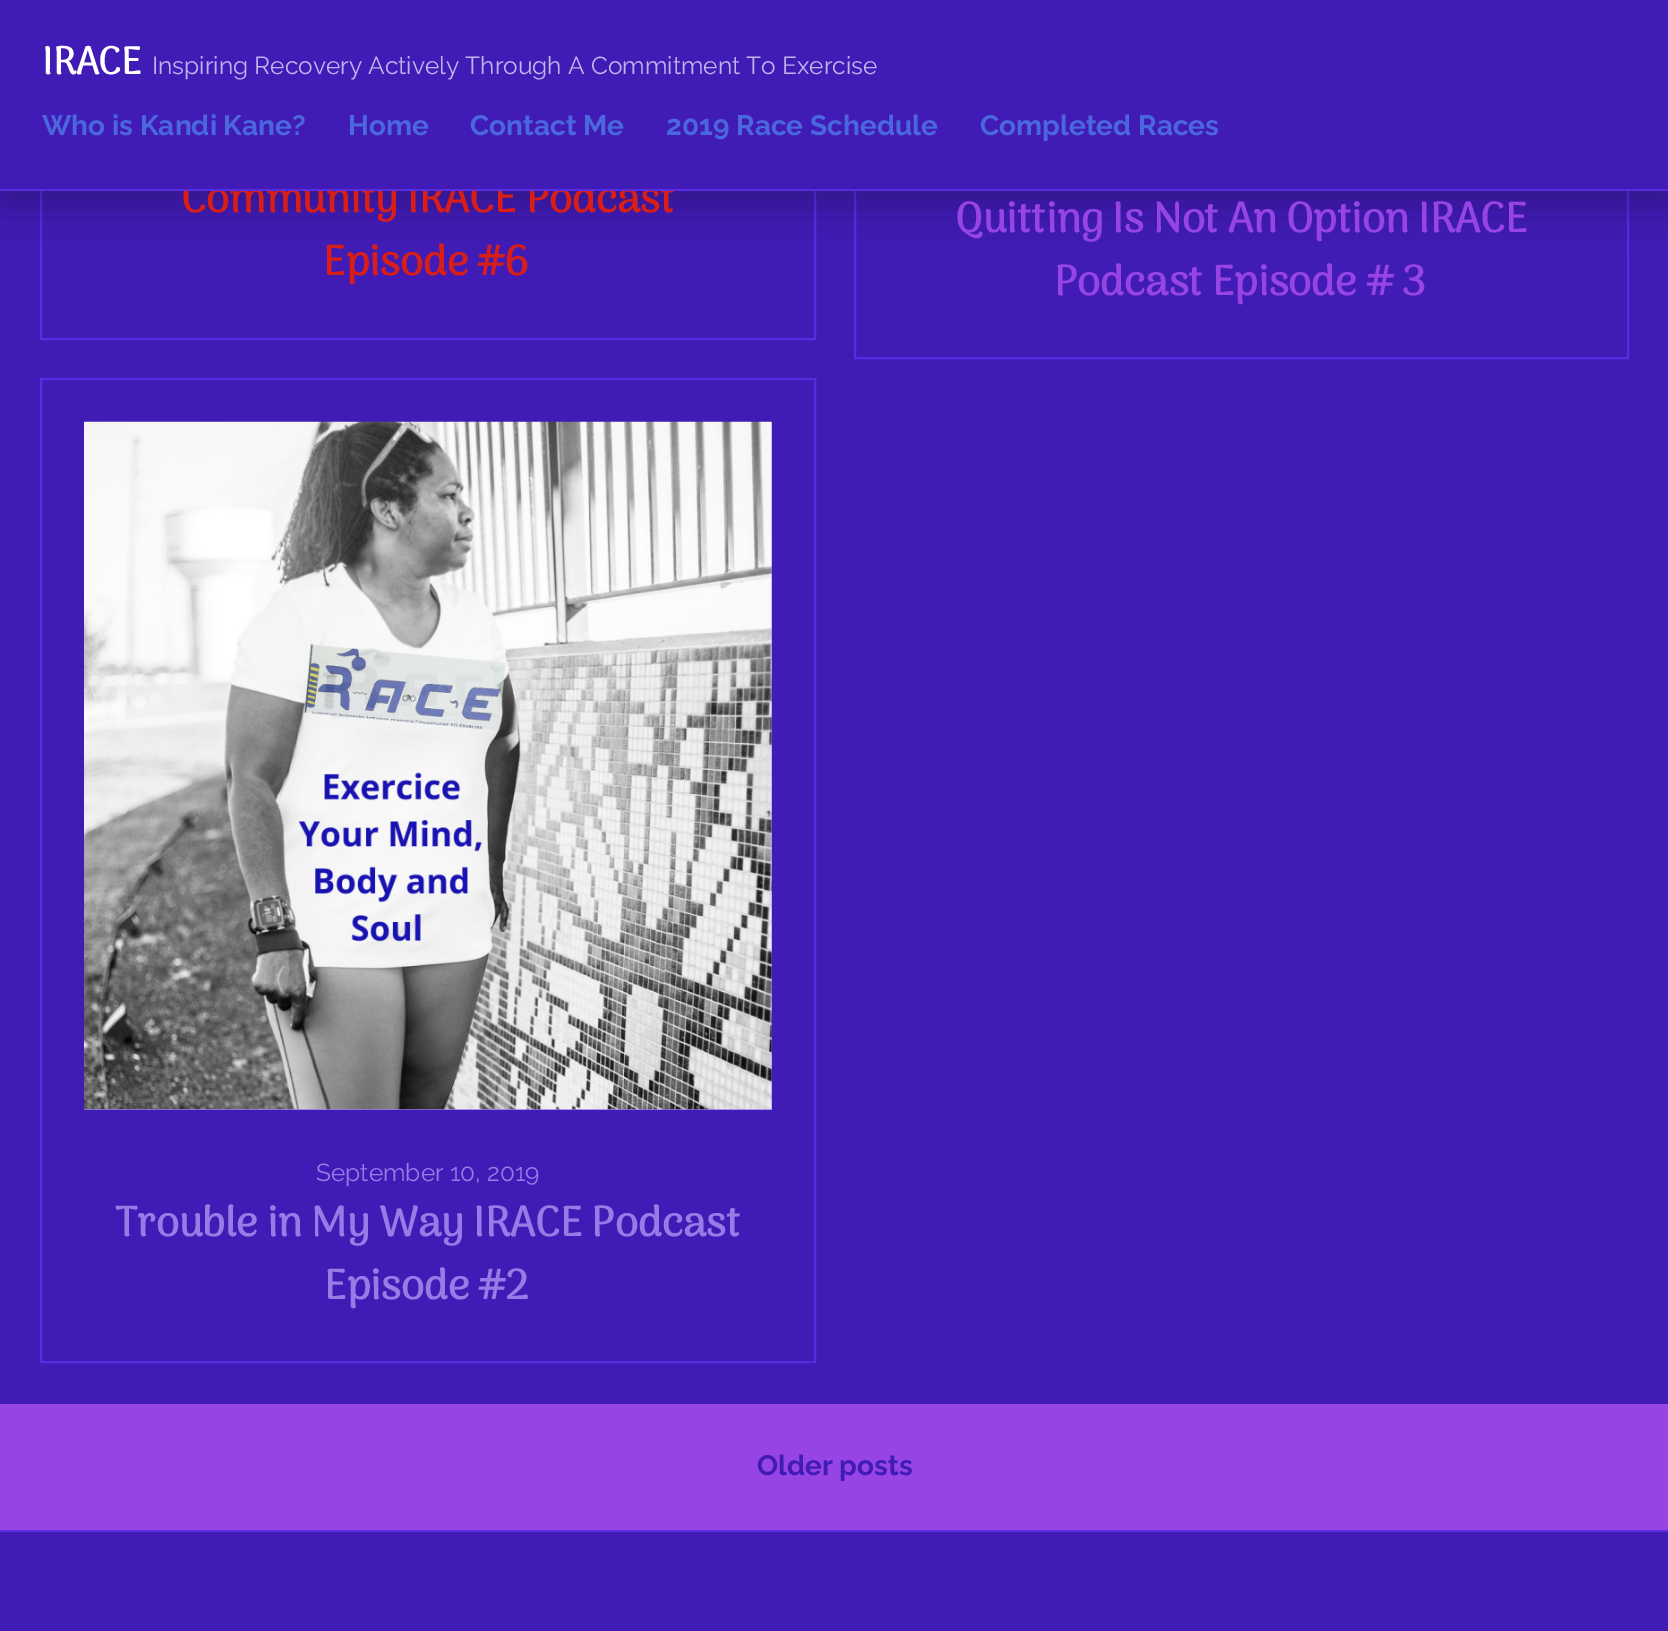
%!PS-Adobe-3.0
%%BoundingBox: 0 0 1668 1631
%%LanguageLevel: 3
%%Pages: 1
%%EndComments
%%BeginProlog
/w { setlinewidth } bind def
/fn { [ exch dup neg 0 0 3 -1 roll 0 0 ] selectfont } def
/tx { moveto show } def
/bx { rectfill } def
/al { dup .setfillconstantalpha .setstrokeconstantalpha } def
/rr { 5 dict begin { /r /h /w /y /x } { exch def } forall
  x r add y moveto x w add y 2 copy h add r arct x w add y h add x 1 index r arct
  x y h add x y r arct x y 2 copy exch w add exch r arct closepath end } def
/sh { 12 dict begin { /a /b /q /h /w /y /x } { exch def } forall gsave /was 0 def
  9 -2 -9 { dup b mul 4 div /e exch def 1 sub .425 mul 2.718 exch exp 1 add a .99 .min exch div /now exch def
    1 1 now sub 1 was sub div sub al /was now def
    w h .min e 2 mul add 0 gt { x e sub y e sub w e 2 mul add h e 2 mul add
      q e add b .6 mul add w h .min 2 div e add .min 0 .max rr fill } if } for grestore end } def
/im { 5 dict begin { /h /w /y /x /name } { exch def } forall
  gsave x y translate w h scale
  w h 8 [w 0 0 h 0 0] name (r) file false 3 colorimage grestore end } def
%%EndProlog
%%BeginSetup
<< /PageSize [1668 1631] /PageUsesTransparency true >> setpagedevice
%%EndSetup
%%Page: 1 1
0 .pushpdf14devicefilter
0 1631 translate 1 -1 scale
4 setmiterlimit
0.255 0.106 0.71 setrgbcolor
0 0 1668 1631 bx
0.349 0.173 0.886 setrgbcolor
2 w
41 -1 774 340 rectstroke
855 -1 773 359 rectstroke
0 setgray
0 14 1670 191 0 21 0.25 sh
/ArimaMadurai-Bold 42 fn
0.851 0.118 0.094 setrgbcolor
(Community IRACE Podcast) 181 212 tx
0.255 0.106 0.71 setrgbcolor
0 0 1668 189 bx
0.349 0.173 0.886 setrgbcolor
0 189 1668 2 bx
/ArimaMadurai-Bold 38.5 fn
1 setgray
(IRACE) 42 74 tx
/Raleway-Regular 24.5 fn
0.757 0.702 0.933 setrgbcolor
(Inspiring Recovery Actively Through A Commitment To Exercise) 152 74 tx
/Raleway-Bold 28 fn
0.29 0.404 0.867 setrgbcolor
(Who is Kandi Kane?) 42 135 tx
(Home) 348 135 tx
(Contact Me) 470 135 tx
(2019 Race Schedule) 666 135 tx
(Completed Races) 980 135 tx
/ArimaMadurai-Bold 42 fn
0.851 0.118 0.094 setrgbcolor
(Episode #6) 323 275 tx
0.588 0.267 0.89 setrgbcolor
(Quitting Is Not An Option IRACE) 955 232 tx
(Podcast Episode # 3) 1054 295 tx
0.592 0.486 0.91 setrgbcolor
84 422 688 688 bx
0.349 0.173 0.886 setrgbcolor
41 379 774 983 rectstroke
(image0.raw) 84 421 688 689 im
/Raleway-Regular 24.5 fn
0.592 0.486 0.91 setrgbcolor
(September 10, 2019) 316 1181 tx
/ArimaMadurai-Bold 42 fn
(Trouble in My Way IRACE Podcast) 115 1236 tx
(Episode #2) 324 1299 tx
0.588 0.267 0.89 setrgbcolor
0 1404 1668 126 bx
/Raleway-Bold 28 fn
0.255 0.106 0.71 setrgbcolor
(Older posts) 757 1475 tx
0.349 0.173 0.886 setrgbcolor
0 1530 1668 2 bx
.poppdf14devicefilter showpage
%%EOF
